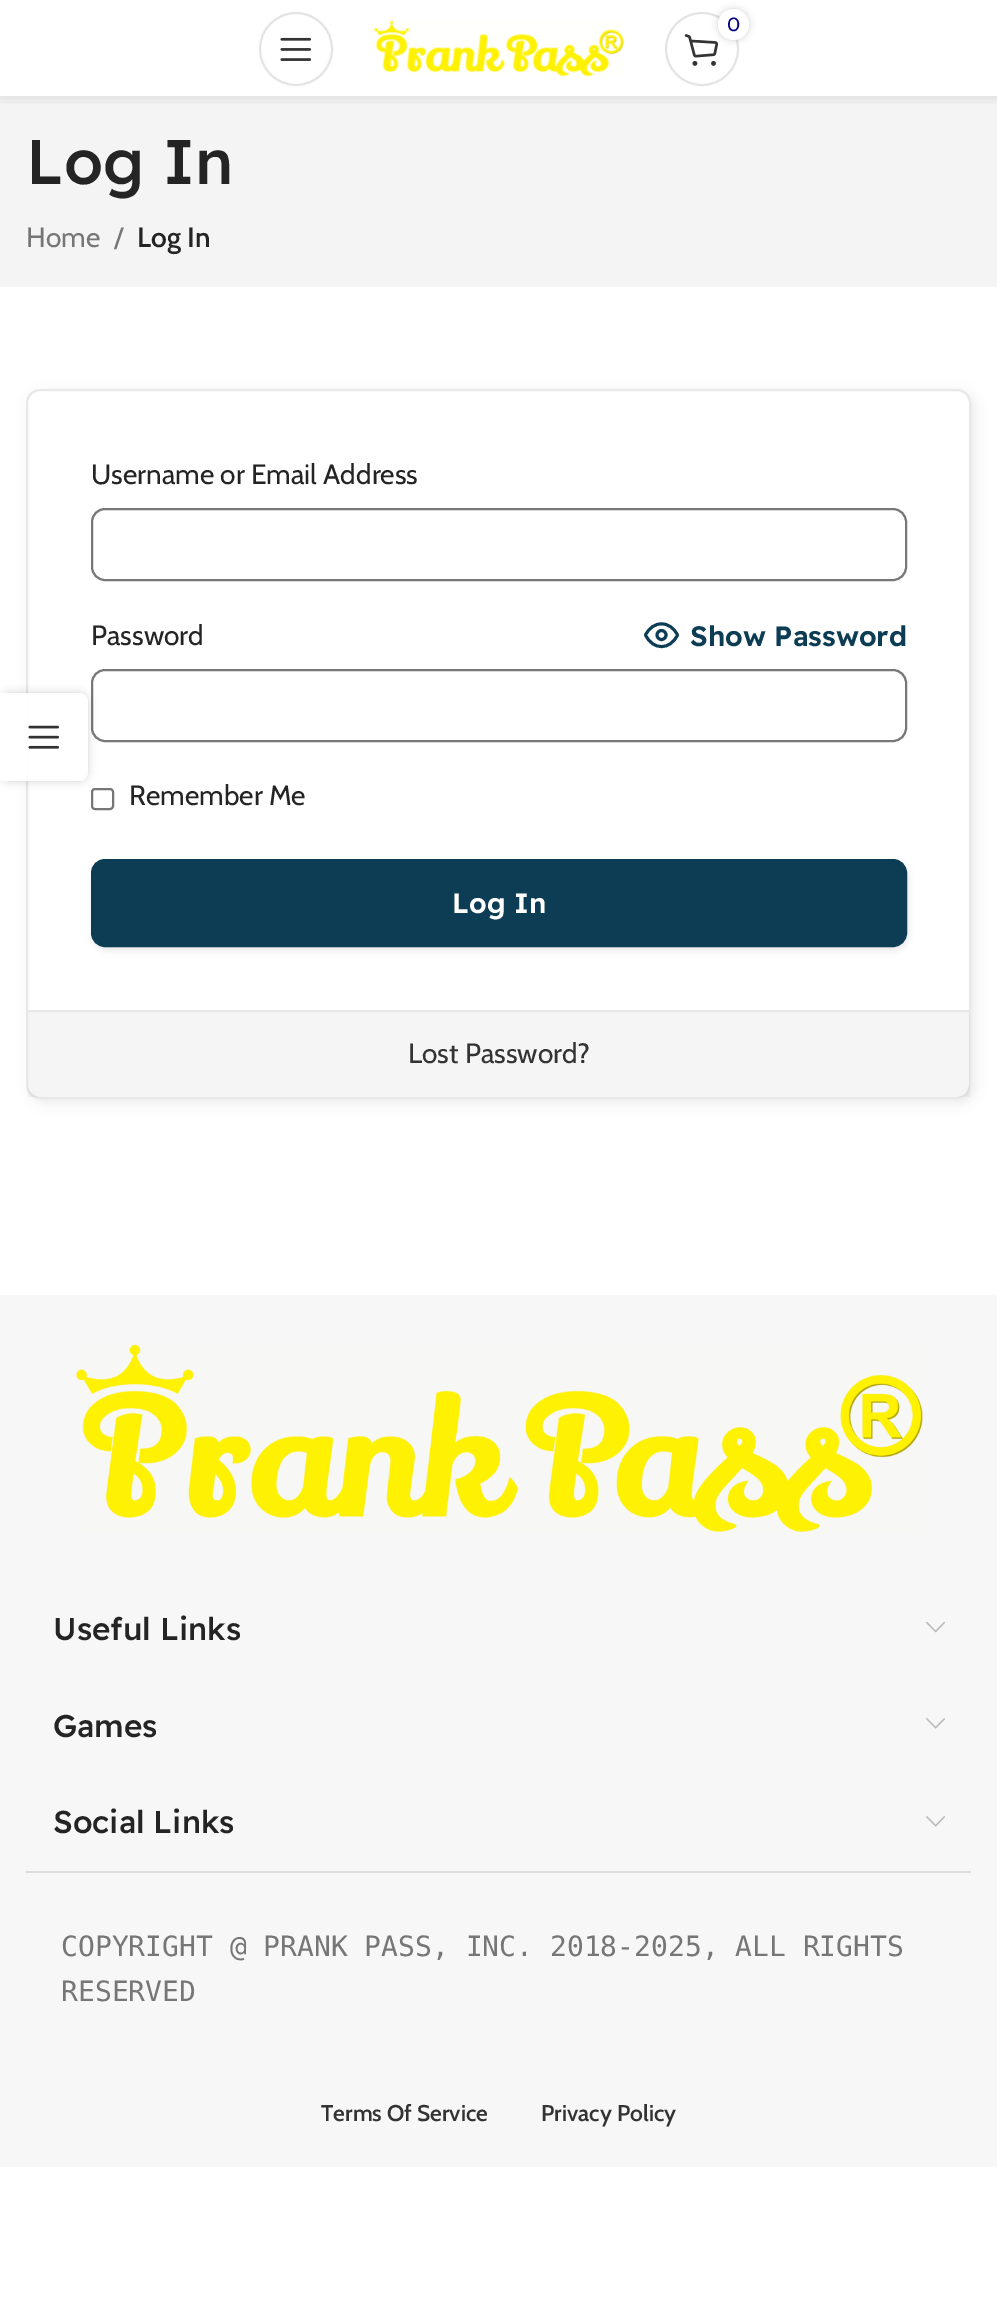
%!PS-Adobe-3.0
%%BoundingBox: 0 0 997 2308
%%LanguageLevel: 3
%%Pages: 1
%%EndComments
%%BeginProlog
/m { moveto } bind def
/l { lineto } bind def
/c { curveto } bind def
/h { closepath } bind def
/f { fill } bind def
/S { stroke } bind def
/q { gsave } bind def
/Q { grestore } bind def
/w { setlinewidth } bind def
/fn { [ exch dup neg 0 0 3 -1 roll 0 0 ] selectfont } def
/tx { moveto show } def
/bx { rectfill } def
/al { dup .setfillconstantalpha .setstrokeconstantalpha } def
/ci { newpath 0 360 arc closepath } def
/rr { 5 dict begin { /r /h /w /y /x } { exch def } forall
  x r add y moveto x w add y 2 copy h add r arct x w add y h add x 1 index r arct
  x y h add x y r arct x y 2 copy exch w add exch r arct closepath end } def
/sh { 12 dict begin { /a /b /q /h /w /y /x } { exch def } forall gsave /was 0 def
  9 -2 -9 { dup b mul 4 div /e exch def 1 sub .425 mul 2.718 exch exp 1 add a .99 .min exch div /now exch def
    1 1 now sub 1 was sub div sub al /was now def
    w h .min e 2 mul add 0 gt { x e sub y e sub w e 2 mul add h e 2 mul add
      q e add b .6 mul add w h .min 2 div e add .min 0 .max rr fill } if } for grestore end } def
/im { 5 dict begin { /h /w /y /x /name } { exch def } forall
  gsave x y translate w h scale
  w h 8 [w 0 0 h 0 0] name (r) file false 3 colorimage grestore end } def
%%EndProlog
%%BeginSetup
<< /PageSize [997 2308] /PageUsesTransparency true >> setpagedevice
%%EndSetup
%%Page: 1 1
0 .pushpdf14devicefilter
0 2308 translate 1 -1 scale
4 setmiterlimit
1 setgray
0 0 997 2308 bx
0.957 setgray
0 96 997 191 bx
q
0 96 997 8 rectclip
0 setgray
0 2 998 96 0 7 0.1 sh
Q
0.894 setgray
2 w
296 49 36 ci S
(image0.raw) 280 37 31 24 im
(image1.raw) 373 20 251 57 im
702 49 36 ci S
(image2.raw) 684 34 34 32 im
0 setgray
718 9 31 31 15.5 3.5 0.17 sh
1 setgray
733.5 24.5 15.5 ci f
/Cabin-Regular 19 fn
0.004 0 0.502 setrgbcolor
(0) 727 31 tx
/ReadexPro-Medium 63 fn
0.141 setgray
(Log In) 26 184 tx
/Cabin-Regular 28 fn
0.463 setgray
(Home) 26 247 tx
(/) 114 247 tx
/Cabin-SemiBold 28 fn
0.141 setgray
(Log In) 137 247 tx
0 setgray
30 392 945 711 14 6 0.07 sh
1 setgray
27 390 943 708 13 rr q f Q
0.91 setgray
S
/Cabin-Regular 28 fn
0.141 setgray
(Username or Email Address) 91 484 tx
0.467 setgray
92 509 814 71 13 rr S
0.141 setgray
(Password) 91 645 tx
0.047 0.239 0.329 setrgbcolor
2.9 w
1 setlinecap
1 setlinejoin
645.5 635 m 653 620 670 620 677.5 635 c 670 650.5 653 650.5 645.5 635 c h S
0 setlinecap
0 setlinejoin
661.5 635 4.5 ci S
/ReadexPro-SemiBold 28 fn
(Show Password) 690 646 tx
0.467 setgray
2 w
92 670 814 71 13 rr S
0.463 setgray
92 789 21 20 3 rr S
/Cabin-Regular 28 fn
0.141 setgray
(Remember Me) 129 805 tx
0 setgray
93 863 815 87 14 3.5 0.1 sh
0.047 0.239 0.329 setrgbcolor
92 860 814 86 13 rr q f Q
S
/ReadexPro-SemiBold 28 fn
1 setgray
(Log In) 452 913 tx
0.04 al
0 setgray
28 1012 942 85 bx
1 al
0.91 setgray
28 1010 942 2 bx
/Cabin-Regular 28 fn
0.2 setgray
(Lost Password?) 408 1063 tx
0.969 setgray
0 1295 997 872 bx
0.863 setgray
26 1871 945 2 bx
(image3.raw) 76 1344 847 188 im
/ReadexPro-Medium 31.5 fn
0.141 setgray
(Useful Links) 53 1640 tx
(image4.raw) 926 1621 19 12 im
(Games) 53 1737 tx
(image5.raw) 926 1718 19 11 im
(Social Links) 53 1833 tx
(image5.raw) 926 1816 19 11 im
/DejaVuSansMono-Regular 28 fn
0.463 setgray
(COPYRIGHT @ PRANK PASS, INC. 2018-2025, ALL RIGHTS) 61 1956 tx
(RESERVED) 61 2001 tx
/Cabin-SemiBold 22.75 fn
0.2 setgray
(Terms Of Service) 321 2121 tx
(Privacy Policy) 541 2121 tx
q
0 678 m 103 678 l 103 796 l 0 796 l h 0 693 m 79 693 l 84 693 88 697 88 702 c 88 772 l 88 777 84 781 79 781 c 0 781 l h eoclip newpath
0 setgray
0 693 88 88 9 4.5 0.17 sh
Q
0.9 al
1 setgray
0 693 m 79 693 l 84 693 88 697 88 702 c 88 772 l 88 777 84 781 79 781 c 0 781 l h f
1 al
(image6.raw) 28 725 31 24 im
.poppdf14devicefilter showpage
%%EOF
